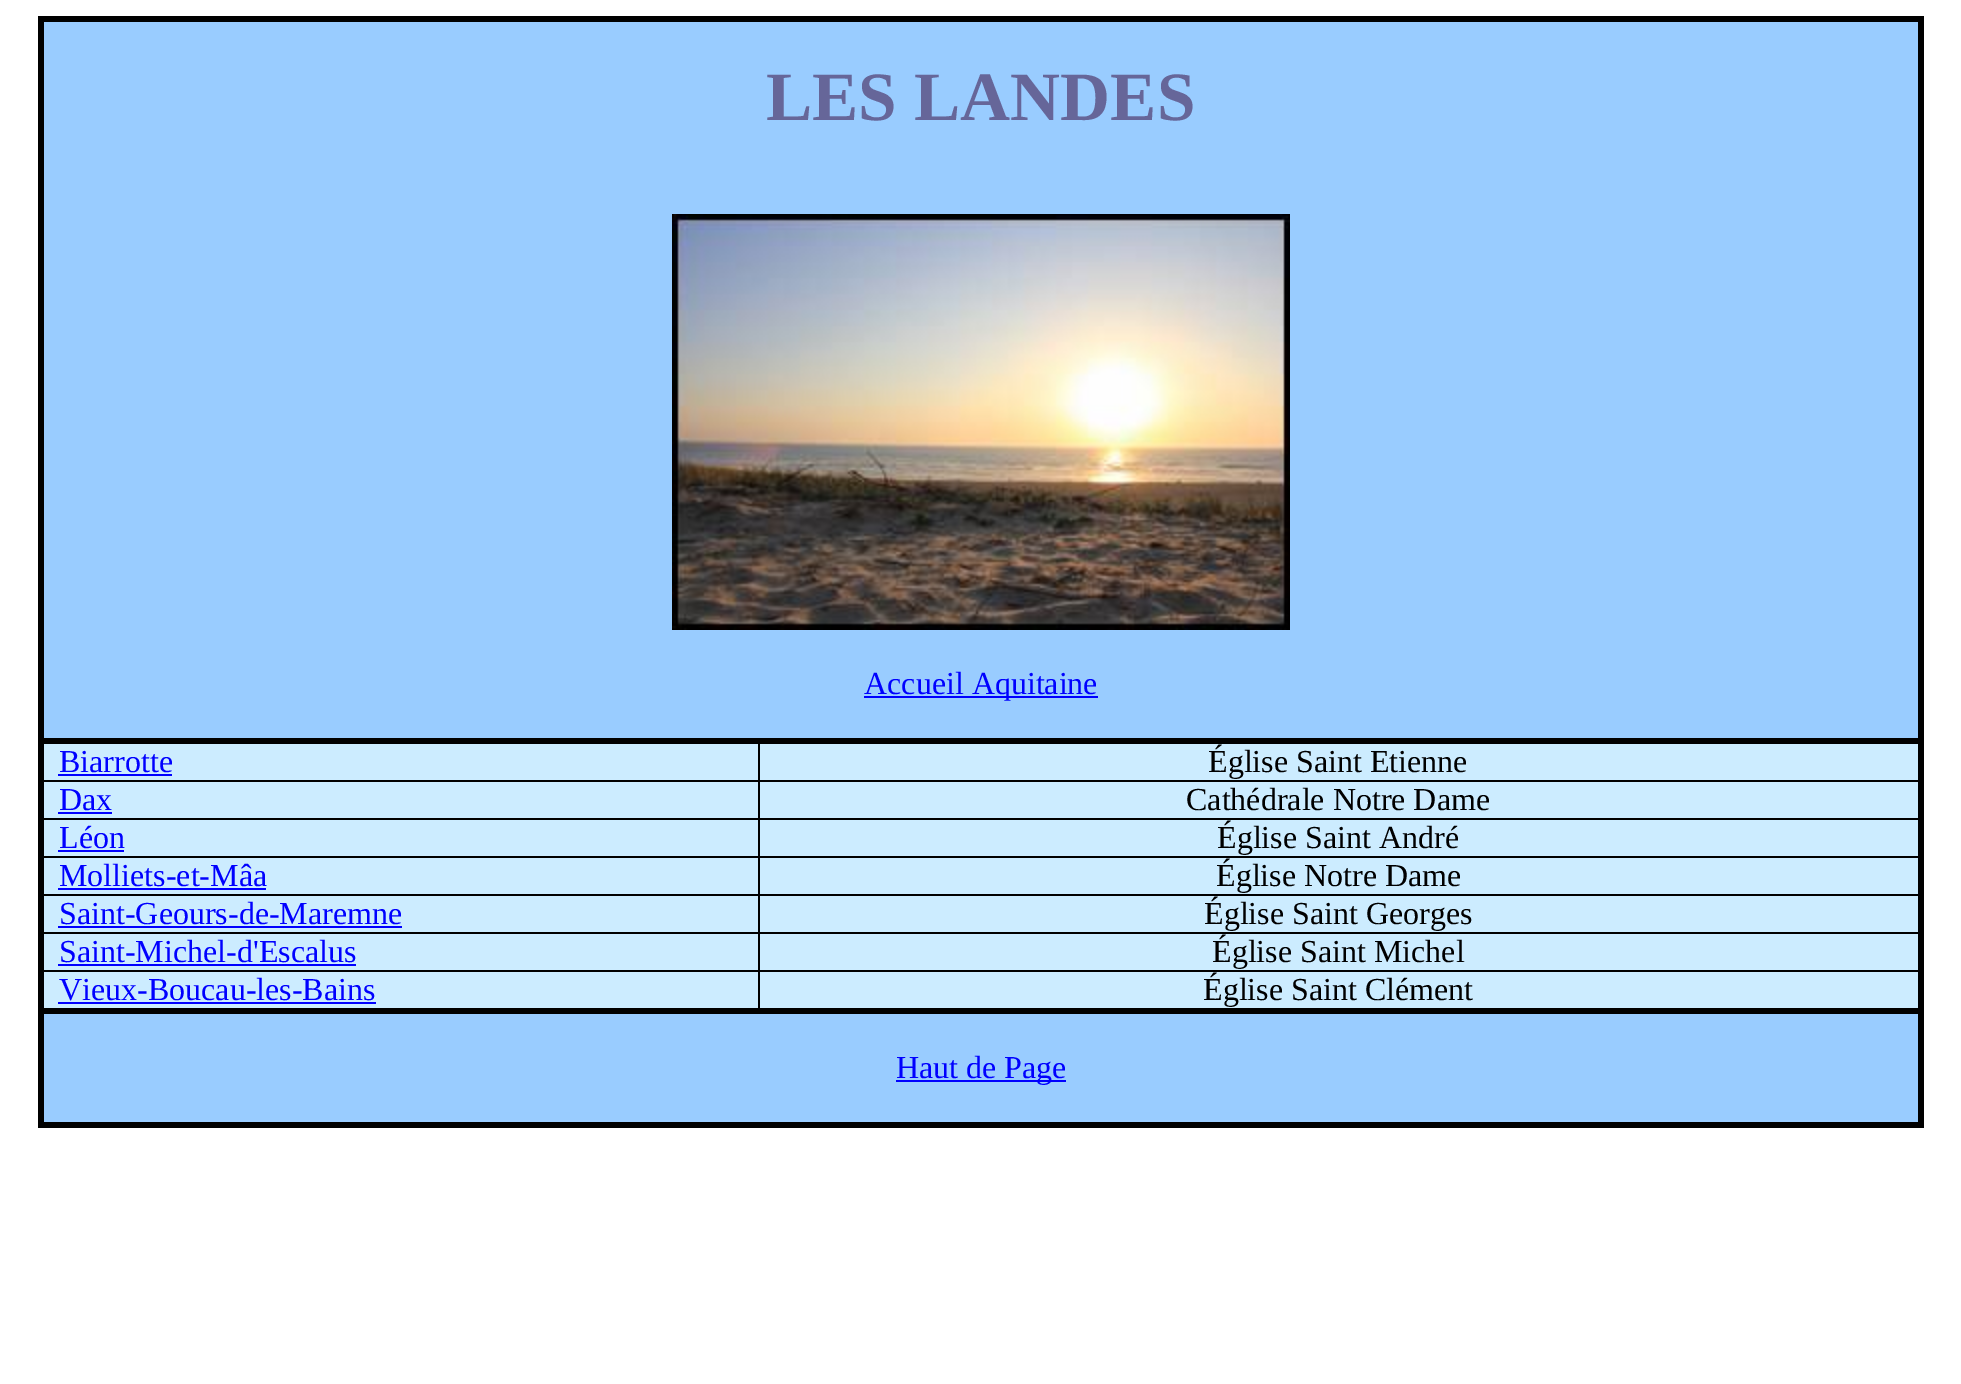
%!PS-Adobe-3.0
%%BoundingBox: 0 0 1961 1384
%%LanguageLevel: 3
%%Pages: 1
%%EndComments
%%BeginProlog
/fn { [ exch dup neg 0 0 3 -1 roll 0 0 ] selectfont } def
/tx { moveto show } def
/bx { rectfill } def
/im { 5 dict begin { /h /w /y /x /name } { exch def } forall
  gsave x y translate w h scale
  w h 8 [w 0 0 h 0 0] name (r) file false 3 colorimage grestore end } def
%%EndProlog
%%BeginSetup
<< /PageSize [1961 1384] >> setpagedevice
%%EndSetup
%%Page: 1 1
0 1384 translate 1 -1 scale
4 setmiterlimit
1 setgray
0 0 1961 1384 bx
0.6 0.8 1 setrgbcolor
44 22 1874 1100 bx
0 setgray
38 16 1886 6 bx
758 970 2 42 bx
758 970 1164 2 bx
758 932 2 40 bx
758 932 1164 2 bx
758 894 2 40 bx
758 894 1164 2 bx
758 856 2 40 bx
758 856 1164 2 bx
758 818 2 40 bx
758 818 1164 2 bx
758 780 2 40 bx
758 780 1164 2 bx
1918 738 6 390 bx
1918 16 6 728 bx
758 740 2 42 bx
40 780 720 2 bx
40 818 720 2 bx
40 856 720 2 bx
40 894 720 2 bx
40 932 720 2 bx
40 970 720 2 bx
38 1122 1886 6 bx
38 1008 6 120 bx
38 1008 1886 6 bx
38 738 6 276 bx
38 738 1886 6 bx
38 16 6 728 bx
/LiberationSerif-Bold 69.25 fn
0.4 0.4 0.6 setrgbcolor
(LES LANDES) 766 120 tx
(image0.raw) 672 214 618 416 im
0 0 1 setrgbcolor
864 696 234 2 bx
/LiberationSerif-Regular 32 fn
(Accueil Aquitaine) 864 694 tx
0.8 0.925 1 setrgbcolor
44 744 714 36 bx
0 0 1 setrgbcolor
(Biarrotte) 59 772 tx
58 774 114 2 bx
0.8 0.925 1 setrgbcolor
760 744 1158 36 bx
0 setgray
(Église Saint Etienne) 1208 772 tx
0.8 0.925 1 setrgbcolor
44 782 714 36 bx
0 0 1 setrgbcolor
(Dax) 59 810 tx
58 812 54 2 bx
0.8 0.925 1 setrgbcolor
760 782 1158 36 bx
0 setgray
(Cathédrale Notre Dame) 1186 810 tx
0.8 0.925 1 setrgbcolor
44 820 714 36 bx
0 0 1 setrgbcolor
(Léon) 59 848 tx
58 850 66 2 bx
0.8 0.925 1 setrgbcolor
760 820 1158 36 bx
0 setgray
(Église Saint André) 1217 848 tx
0.8 0.925 1 setrgbcolor
44 858 714 36 bx
0 0 1 setrgbcolor
(Molliets-et-Mâa) 59 886 tx
58 888 208 2 bx
0.8 0.925 1 setrgbcolor
760 858 1158 36 bx
0 setgray
(Église Notre Dame) 1216 886 tx
0.8 0.925 1 setrgbcolor
44 896 714 36 bx
0 0 1 setrgbcolor
(Saint-Geours-de-Maremne) 59 924 tx
58 926 344 2 bx
0.8 0.925 1 setrgbcolor
760 896 1158 36 bx
0 setgray
(Église Saint Georges) 1204 924 tx
0.8 0.925 1 setrgbcolor
44 934 714 36 bx
0 0 1 setrgbcolor
(Saint-Michel-d'Escalus) 59 962 tx
58 964 298 2 bx
0.8 0.925 1 setrgbcolor
760 934 1158 36 bx
0 setgray
(Église Saint Michel) 1212 962 tx
0.8 0.925 1 setrgbcolor
44 972 714 36 bx
0 0 1 setrgbcolor
(Vieux-Boucau-les-Bains) 59 1000 tx
58 1002 318 2 bx
0.8 0.925 1 setrgbcolor
760 972 1158 36 bx
0 setgray
(Église Saint Clément) 1203 1000 tx
0 0 1 setrgbcolor
896 1080 170 2 bx
(Haut de Page) 896 1078 tx
showpage
%%EOF
